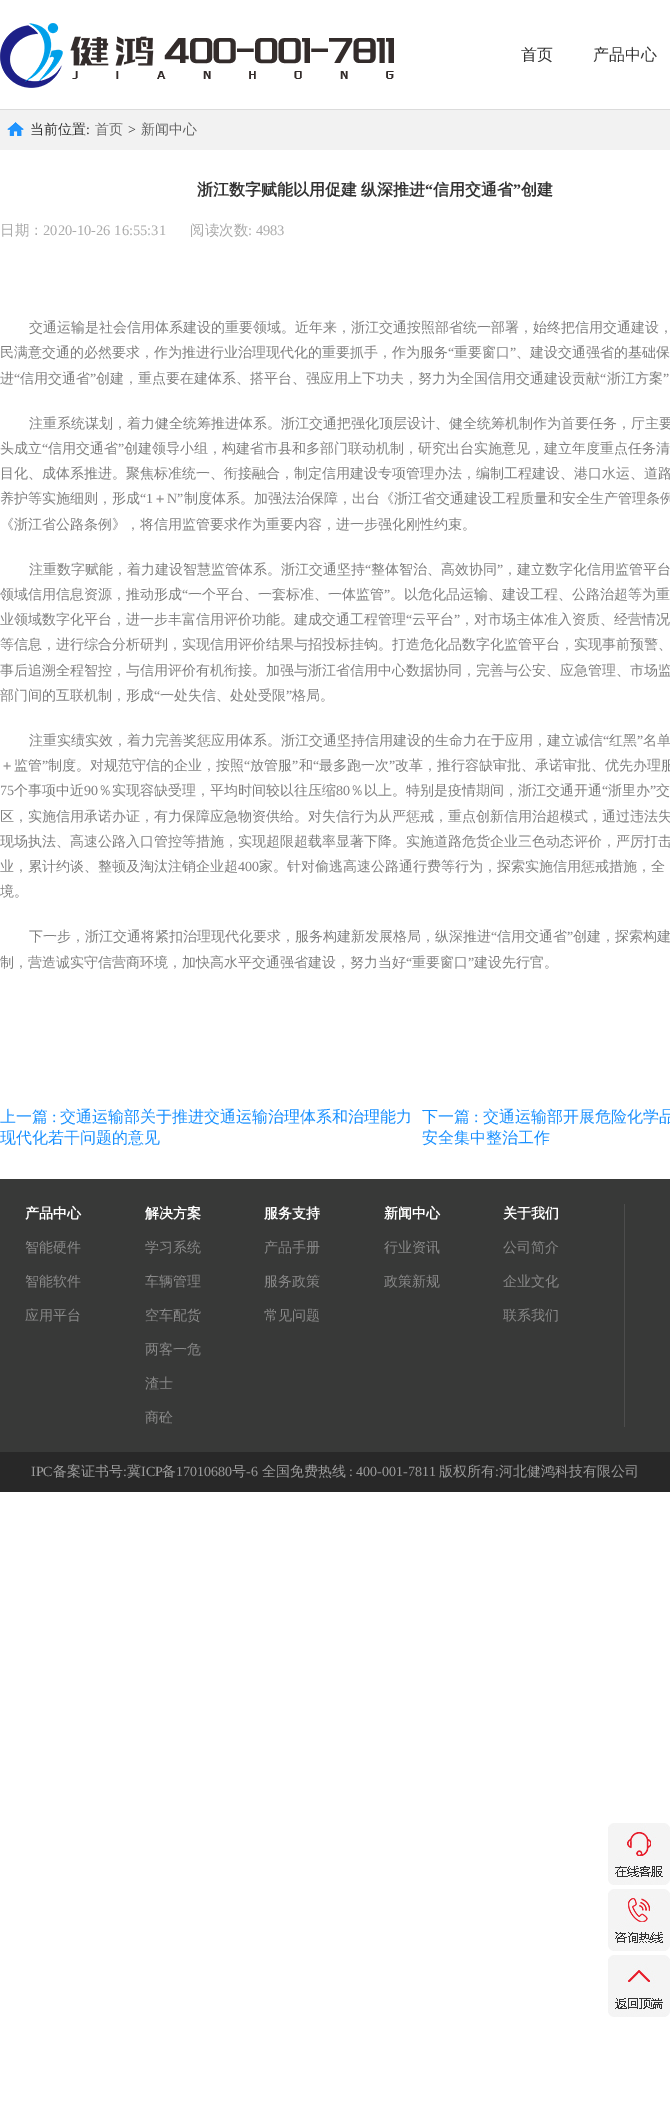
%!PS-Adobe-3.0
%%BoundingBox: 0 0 670 2121
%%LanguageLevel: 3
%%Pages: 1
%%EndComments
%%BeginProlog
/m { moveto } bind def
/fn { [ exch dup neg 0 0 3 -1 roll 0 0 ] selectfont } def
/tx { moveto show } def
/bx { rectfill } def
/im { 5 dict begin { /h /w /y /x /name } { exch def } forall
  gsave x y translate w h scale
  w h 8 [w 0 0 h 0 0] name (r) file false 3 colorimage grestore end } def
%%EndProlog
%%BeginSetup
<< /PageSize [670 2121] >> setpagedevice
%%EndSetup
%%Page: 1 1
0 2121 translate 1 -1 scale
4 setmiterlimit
1 setgray
0 0 670 2121 bx
0.859 setgray
0 109 670 1 bx
(image0.raw) 0 23 394 65 im
/WenQuanYiZenHei-Medium 16 fn
0.2 setgray
(首页) 521 60 tx
(产品中心) 593 60 tx
0.949 setgray
0 110 670 40 bx
(image1.raw) 7 122 17 14 im
/WenQuanYiZenHei-Medium 14 fn
0.2 setgray
(当前位置) 30 134 tx
/LiberationSerif-Regular 14 fn
(:) 86 134 tx
/WenQuanYiZenHei-Medium 14 fn
0.4 setgray
(首页) 95 134 tx
/LiberationSerif-Regular 14 fn
0.2 setgray
(>) 128 134 tx
/WenQuanYiZenHei-Medium 14 fn
0.4 setgray
(新闻中心) 141 134 tx
/WenQuanYiZenHei-Bold 16 fn
0.2 setgray
197 195 m -1 0 32 (浙江数字赋能以用促建 纵深推进) widthshow
/LiberationSerif-Bold 16 fn
(“) 425 195 tx
/WenQuanYiZenHei-Bold 16 fn
(信用交通省) 433 195 tx
/LiberationSerif-Bold 16 fn
(”) 513 195 tx
/WenQuanYiZenHei-Bold 16 fn
(创建) 521 195 tx
/WenQuanYiZenHei-Medium 14.5 fn
0.667 setgray
(日期：) 0 235 tx
/LiberationSerif-Regular 14.5 fn
(2020-10-26 16:55:31) 43 235 tx
/WenQuanYiZenHei-Medium 14.5 fn
(阅读次数) 190 235 tx
/LiberationSerif-Regular 14.5 fn
(: 4983) 248 235 tx
/WenQuanYiZenHei-Medium 14 fn
0.498 setgray
(交通运输是社会信用体系建设的重要领域。近年来，浙江交通按照部省统一部署，始终把信用交通建设，) 29 332 tx
(民满意交通的必然要求，作为推进行业治理现代化的重要抓手，作为服务) 0 357 tx
/LiberationSerif-Regular 14 fn
(“) 448 357 tx
/WenQuanYiZenHei-Medium 14 fn
(重要窗口) 454 357 tx
/LiberationSerif-Regular 14 fn
(”) 510 357 tx
/WenQuanYiZenHei-Medium 14 fn
(、建设交通强省的基础保) 516 357 tx
(进) 0 383 tx
/LiberationSerif-Regular 14 fn
(“) 14 383 tx
/WenQuanYiZenHei-Medium 14 fn
(信用交通省) 20 383 tx
/LiberationSerif-Regular 14 fn
(”) 90 383 tx
/WenQuanYiZenHei-Medium 14 fn
(创建，重点要在建体系、搭平台、强应用上下功夫，努力为全国信用交通建设贡献) 96 383 tx
/LiberationSerif-Regular 14 fn
(“) 600 383 tx
/WenQuanYiZenHei-Medium 14 fn
(浙江方案) 607 383 tx
/LiberationSerif-Regular 14 fn
(”) 663 383 tx
/WenQuanYiZenHei-Medium 14 fn
(注重系统谋划，着力健全统筹推进体系。浙江交通把强化顶层设计、健全统筹机制作为首要任务，厅主要) 29 428 tx
(头成立) 0 453 tx
/LiberationSerif-Regular 14 fn
(“) 42 453 tx
/WenQuanYiZenHei-Medium 14 fn
(信用交通省) 48 453 tx
/LiberationSerif-Regular 14 fn
(”) 118 453 tx
/WenQuanYiZenHei-Medium 14 fn
(创建领导小组，构建省市县和多部门联动机制，研究出台实施意见，建立年度重点任务清) 124 453 tx
(目化、成体系推进。聚焦标准统一、衔接融合，制定信用建设专项管理办法，编制工程建设、港口水运、道路) 0 478 tx
(养护等实施细则，形成) 0 503 tx
/LiberationSerif-Regular 14 fn
(“1) 140 503 tx
/WenQuanYiZenHei-Medium 14 fn
(＋) 153 503 tx
/LiberationSerif-Regular 14 fn
(N”) 167 503 tx
/WenQuanYiZenHei-Medium 14 fn
(制度体系。加强法治保障，出台《浙江省交通建设工程质量和安全生产管理条例) 184 503 tx
(《浙江省公路条例》，将信用监管要求作为重要内容，进一步强化刚性约束。) 0 529 tx
(注重数字赋能，着力建设智慧监管体系。浙江交通坚持) 29 574 tx
/LiberationSerif-Regular 14 fn
(“) 365 574 tx
/WenQuanYiZenHei-Medium 14 fn
(整体智治、高效协同) 371 574 tx
/LiberationSerif-Regular 14 fn
(”) 497 574 tx
/WenQuanYiZenHei-Medium 14 fn
(，建立数字化信用监管平台) 503 574 tx
(领域信用信息资源，推动形成) 0 599 tx
/LiberationSerif-Regular 14 fn
(“) 182 599 tx
/WenQuanYiZenHei-Medium 14 fn
(一个平台、一套标准、一体监管) 188 599 tx
/LiberationSerif-Regular 14 fn
(”) 384 599 tx
/WenQuanYiZenHei-Medium 14 fn
(。以危化品运输、建设工程、公路治超等为重) 390 599 tx
(业领域数字化平台，进一步丰富信用评价功能。建成交通工程管理) 0 624 tx
/LiberationSerif-Regular 14 fn
(“) 406 624 tx
/WenQuanYiZenHei-Medium 14 fn
(云平台) 412 624 tx
/LiberationSerif-Regular 14 fn
(”) 454 624 tx
/WenQuanYiZenHei-Medium 14 fn
(，对市场主体准入资质、经营情况) 460 624 tx
(等信息，进行综合分析研判，实现信用评价结果与招投标挂钩。打造危化品数字化监管平台，实现事前预警、) 0 649 tx
(事后追溯全程智控，与信用评价有机衔接。加强与浙江省信用中心数据协同，完善与公安、应急管理、市场监) 0 675 tx
(部门间的互联机制，形成) 0 700 tx
/LiberationSerif-Regular 14 fn
(“) 154 700 tx
/WenQuanYiZenHei-Medium 14 fn
(一处失信、处处受限) 160 700 tx
/LiberationSerif-Regular 14 fn
(”) 286 700 tx
/WenQuanYiZenHei-Medium 14 fn
(格局。) 292 700 tx
(注重实绩实效，着力完善奖惩应用体系。浙江交通坚持信用建设的生命力在于应用，建立诚信) 29 745 tx
/LiberationSerif-Regular 14 fn
(“) 603 745 tx
/WenQuanYiZenHei-Medium 14 fn
(红黑) 609 745 tx
/LiberationSerif-Regular 14 fn
(”) 637 745 tx
/WenQuanYiZenHei-Medium 14 fn
(名单) 643 745 tx
(＋监管) 0 770 tx
/LiberationSerif-Regular 14 fn
(”) 42 770 tx
/WenQuanYiZenHei-Medium 14 fn
(制度。对规范守信的企业，按照) 48 770 tx
/LiberationSerif-Regular 14 fn
(“) 244 770 tx
/WenQuanYiZenHei-Medium 14 fn
(放管服) 250 770 tx
/LiberationSerif-Regular 14 fn
(”) 292 770 tx
/WenQuanYiZenHei-Medium 14 fn
(和) 299 770 tx
/LiberationSerif-Regular 14 fn
(“) 313 770 tx
/WenQuanYiZenHei-Medium 14 fn
(最多跑一次) 319 770 tx
/LiberationSerif-Regular 14 fn
(”) 389 770 tx
/WenQuanYiZenHei-Medium 14 fn
(改革，推行容缺审批、承诺审批、优先办理服) 395 770 tx
/LiberationSerif-Regular 14 fn
(75) 0 795 tx
/WenQuanYiZenHei-Medium 14 fn
(个事项中近) 14 795 tx
/LiberationSerif-Regular 14 fn
(90) 84 795 tx
/WenQuanYiZenHei-Medium 14 fn
(％实现容缺受理，平均时间较以往压缩) 98 795 tx
/LiberationSerif-Regular 14 fn
(80) 336 795 tx
/WenQuanYiZenHei-Medium 14 fn
(％以上。特别是疫情期间，浙江交通开通) 350 795 tx
/LiberationSerif-Regular 14 fn
(“) 602 795 tx
/WenQuanYiZenHei-Medium 14 fn
(浙里办) 608 795 tx
/LiberationSerif-Regular 14 fn
(”) 650 795 tx
/WenQuanYiZenHei-Medium 14 fn
(交) 656 795 tx
(区，实施信用承诺办证，有力保障应急物资供给。对失信行为从严惩戒，重点创新信用治超模式，通过违法失) 0 821 tx
(现场执法、高速公路入口管控等措施，实现超限超载率显著下降。实施道路危货企业三色动态评价，严厉打击) 0 846 tx
(业，累计约谈、整顿及淘汰注销企业超) 0 871 tx
/LiberationSerif-Regular 14 fn
(400) 238 871 tx
/WenQuanYiZenHei-Medium 14 fn
(家。针对偷逃高速公路通行费等行为，探索实施信用惩戒措施，全) 259 871 tx
(境。) 0 896 tx
(下一步，浙江交通将紧扣治理现代化要求，服务构建新发展格局，纵深推进) 29 941 tx
/LiberationSerif-Regular 14 fn
(“) 491 941 tx
/WenQuanYiZenHei-Medium 14 fn
(信用交通省) 497 941 tx
/LiberationSerif-Regular 14 fn
(”) 567 941 tx
/WenQuanYiZenHei-Medium 14 fn
(创建，探索构建) 573 941 tx
(制，营造诚实守信营商环境，加快高水平交通强省建设，努力当好) 0 967 tx
/LiberationSerif-Regular 14 fn
(“) 406 967 tx
/WenQuanYiZenHei-Medium 14 fn
(重要窗口) 412 967 tx
/LiberationSerif-Regular 14 fn
(”) 468 967 tx
/WenQuanYiZenHei-Medium 14 fn
(建设先行官。) 474 967 tx
/WenQuanYiZenHei-Medium 16 fn
0.094 0.565 1 setrgbcolor
(上一篇) 0 1122 tx
/LiberationSerif-Regular 16 fn
(:) 52 1122 tx
/WenQuanYiZenHei-Medium 16 fn
(交通运输部关于推进交通运输治理体系和治理能力) 60 1122 tx
(现代化若干问题的意见) 0 1143 tx
(下一篇) 422 1122 tx
/LiberationSerif-Regular 16 fn
(:) 474 1122 tx
/WenQuanYiZenHei-Medium 16 fn
(交通运输部开展危险化学品) 483 1122 tx
(安全集中整治工作) 422 1143 tx
0.22 0.224 0.22 setrgbcolor
0 1179 670 273 bx
0.302 setgray
624 1204 1 223 bx
/WenQuanYiZenHei-Bold 14 fn
1 setgray
(产品中心) 25 1218 tx
/WenQuanYiZenHei-Medium 14 fn
0.537 setgray
(智能硬件) 25 1252 tx
(智能软件) 25 1286 tx
(应用平台) 25 1320 tx
/WenQuanYiZenHei-Bold 14 fn
1 setgray
(解决方案) 145 1218 tx
/WenQuanYiZenHei-Medium 14 fn
0.537 setgray
(学习系统) 145 1252 tx
(车辆管理) 145 1286 tx
(空车配货) 145 1320 tx
(两客一危) 145 1354 tx
(渣士) 145 1388 tx
(商砼) 145 1422 tx
/WenQuanYiZenHei-Bold 14 fn
1 setgray
(服务支持) 264 1218 tx
/WenQuanYiZenHei-Medium 14 fn
0.537 setgray
(产品手册) 264 1252 tx
(服务政策) 264 1286 tx
(常见问题) 264 1320 tx
/WenQuanYiZenHei-Bold 14 fn
1 setgray
(新闻中心) 384 1218 tx
/WenQuanYiZenHei-Medium 14 fn
0.537 setgray
(行业资讯) 384 1252 tx
(政策新规) 384 1286 tx
/WenQuanYiZenHei-Bold 14 fn
1 setgray
(关于我们) 503 1218 tx
/WenQuanYiZenHei-Medium 14 fn
0.537 setgray
(公司简介) 503 1252 tx
(企业文化) 503 1286 tx
(联系我们) 503 1320 tx
0.157 setgray
0 1452 670 40 bx
/LiberationSerif-Regular 14 fn
0.608 setgray
(IPC) 31 1476 tx
/WenQuanYiZenHei-Medium 14 fn
(备案证书号 冀) 53 1476 tx
/LiberationSerif-Regular 14 fn
(ICP) 141 1476 tx
/WenQuanYiZenHei-Medium 14 fn
(备) 162 1476 tx
/LiberationSerif-Regular 14 fn
(17010680) 176 1476 tx
/WenQuanYiZenHei-Medium 14 fn
(号) 232 1476 tx
/LiberationSerif-Regular 14 fn
(-6) 246 1476 tx
/WenQuanYiZenHei-Medium 14 fn
(全国免费热线) 262 1476 tx
/LiberationSerif-Regular 14 fn
(: 400-001-7811) 349 1476 tx
/WenQuanYiZenHei-Medium 14 fn
(版权所有) 439 1476 tx
(河北健鸿科技有限公司) 499 1476 tx
/LiberationSerif-Regular 14 fn
(:) 123 1476 tx
(:) 495 1476 tx
(image2.raw) 608 1823 62 62 im
(image3.raw) 608 1889 62 62 im
(image4.raw) 608 1955 62 62 im
showpage
%%EOF
